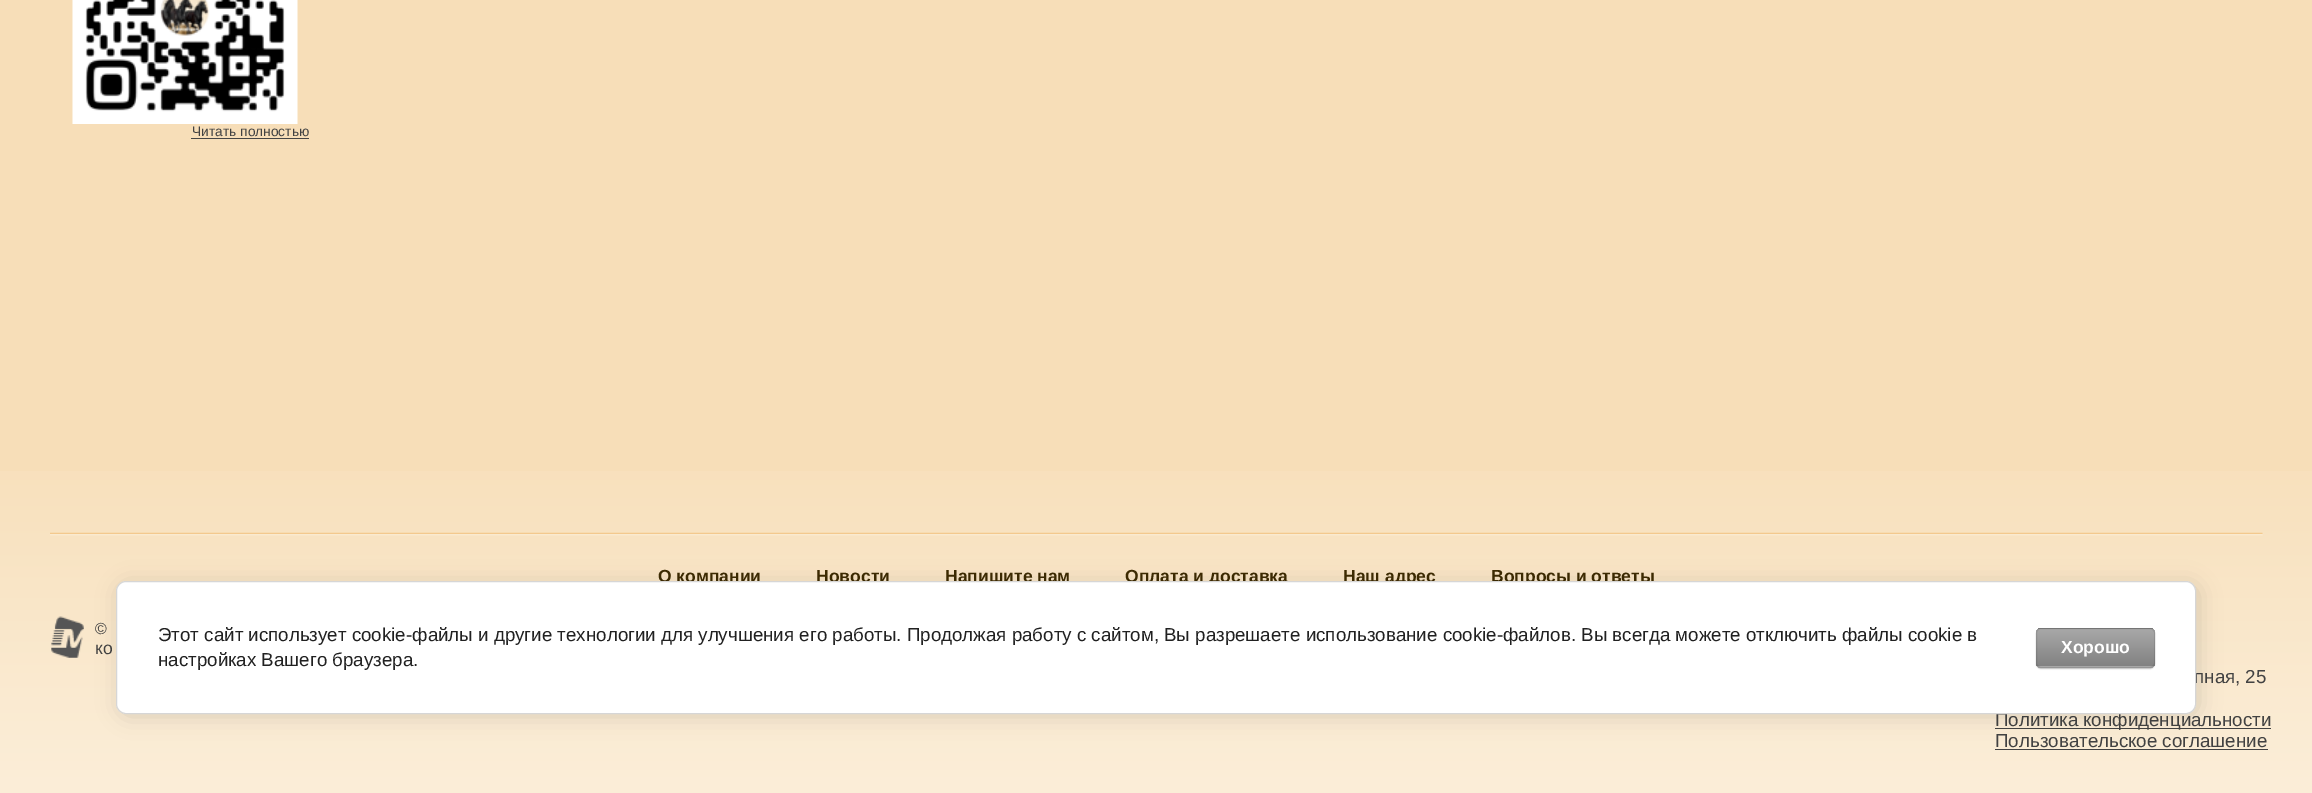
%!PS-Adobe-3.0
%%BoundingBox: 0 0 2312 793
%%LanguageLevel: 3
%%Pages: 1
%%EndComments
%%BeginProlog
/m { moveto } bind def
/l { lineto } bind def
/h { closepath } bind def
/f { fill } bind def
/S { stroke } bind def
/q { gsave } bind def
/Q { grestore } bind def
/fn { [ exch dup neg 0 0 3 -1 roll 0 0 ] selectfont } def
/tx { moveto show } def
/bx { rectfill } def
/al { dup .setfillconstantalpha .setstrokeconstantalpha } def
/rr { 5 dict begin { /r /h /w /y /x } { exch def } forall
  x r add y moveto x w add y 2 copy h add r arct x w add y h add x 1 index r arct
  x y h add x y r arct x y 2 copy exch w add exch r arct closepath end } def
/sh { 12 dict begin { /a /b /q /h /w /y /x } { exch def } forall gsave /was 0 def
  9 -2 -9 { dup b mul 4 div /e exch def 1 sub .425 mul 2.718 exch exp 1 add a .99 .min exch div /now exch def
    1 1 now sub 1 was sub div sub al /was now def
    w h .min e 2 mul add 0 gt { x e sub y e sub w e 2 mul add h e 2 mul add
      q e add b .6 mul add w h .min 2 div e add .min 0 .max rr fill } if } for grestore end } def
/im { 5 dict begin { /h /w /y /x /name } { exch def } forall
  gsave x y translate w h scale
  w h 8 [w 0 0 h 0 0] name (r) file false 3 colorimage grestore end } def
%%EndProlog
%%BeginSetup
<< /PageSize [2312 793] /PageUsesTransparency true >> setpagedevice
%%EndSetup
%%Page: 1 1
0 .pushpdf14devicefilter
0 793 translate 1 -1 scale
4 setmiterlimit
0.969 0.871 0.722 setrgbcolor
0 0 2312 793 bx
(image0.raw) 72 0 226 124 im
/LiberationSans-Regular 13.75 fn
0.259 setgray
(Читать полностью) 192 136 tx
0.275 setgray
191 138 118 1 bx
(image1.raw) 0 471 2312 322 im
(image2.raw) 50 532 2213 4 im
/LiberationSans-Bold 17.5 fn
0.239 0.169 0.008 setrgbcolor
(О компании) 658 582 tx
(Новости) 816 582 tx
(Напишите нам) 945 582 tx
(Оплата и доставка) 1125 582 tx
(Наш адрес) 1343 582 tx
(Вопросы и ответы) 1491 582 tx
(image3.raw) 51 616 33 42 im
/LiberationSans-Regular 16 fn
0.259 setgray
(©) 95 634 tx
/LiberationSans-Regular 17.5 fn
(ко) 95 654 tx
/LiberationSans-Regular 18.75 fn
(пная, 25) 2194 683 tx
1995 728 276 1 bx
(Политика конфиденциальности) 1995 726 tx
(Пользовательское соглашение) 1995 747 tx
1995 749 273 1 bx
0 setgray
119 584 2080 132 10 11 0.14 sh
1 setgray
116.5 581.5 2079 132 9.5 rr q f Q
0.839 setgray
S
0.129 setgray
(Этот сайт использует cookie-файлы и другие технологии для улучшения его работы. Продолжая работу с сайтом, Вы разрешаете использование cookie-файлов. Вы всегда можете отключить файлы cookie в) 158 641 tx
(настройках Вашего браузера.) 158 666 tx
0 setgray
2036 629 119 40 5 0.5 0.2 sh
q
2036 628 119 40 5 rr clip newpath
q 2036 628 m 2155 628 l 2155 629 l 2036 629 l h clip newpath
<< /ShadingType 2 /ColorSpace /DeviceRGB /Coords [2096 591 2096 629] /Extend [true true] /Function << /FunctionType 2 /Domain [0 1] /C0 [0.659 0.659 0.659] /C1 [0.51 0.51 0.51] /N 1 >> >> shfill Q
q 2036 629 m 2155 629 l 2155 666 l 2036 666 l h clip newpath
<< /ShadingType 2 /ColorSpace /DeviceRGB /Coords [2096 629 2096 666] /Extend [true true] /Function << /FunctionType 2 /Domain [0 1] /C0 [0.659 0.659 0.659] /C1 [0.51 0.51 0.51] /N 1 >> >> shfill Q
q 2036 666 m 2155 666 l 2155 668 l 2036 668 l h clip newpath
<< /ShadingType 2 /ColorSpace /DeviceRGB /Coords [2096 666 2096 704] /Extend [true true] /Function << /FunctionType 2 /Domain [0 1] /C0 [0.659 0.659 0.659] /C1 [0.51 0.51 0.51] /N 1 >> >> shfill Q
Q
0.1 al
2036.5 628.5 118 39 4.5 rr S
/LiberationSans-Bold 17.5 fn
1 al
1 setgray
(Хорошо) 2061 653 tx
.poppdf14devicefilter showpage
%%EOF
